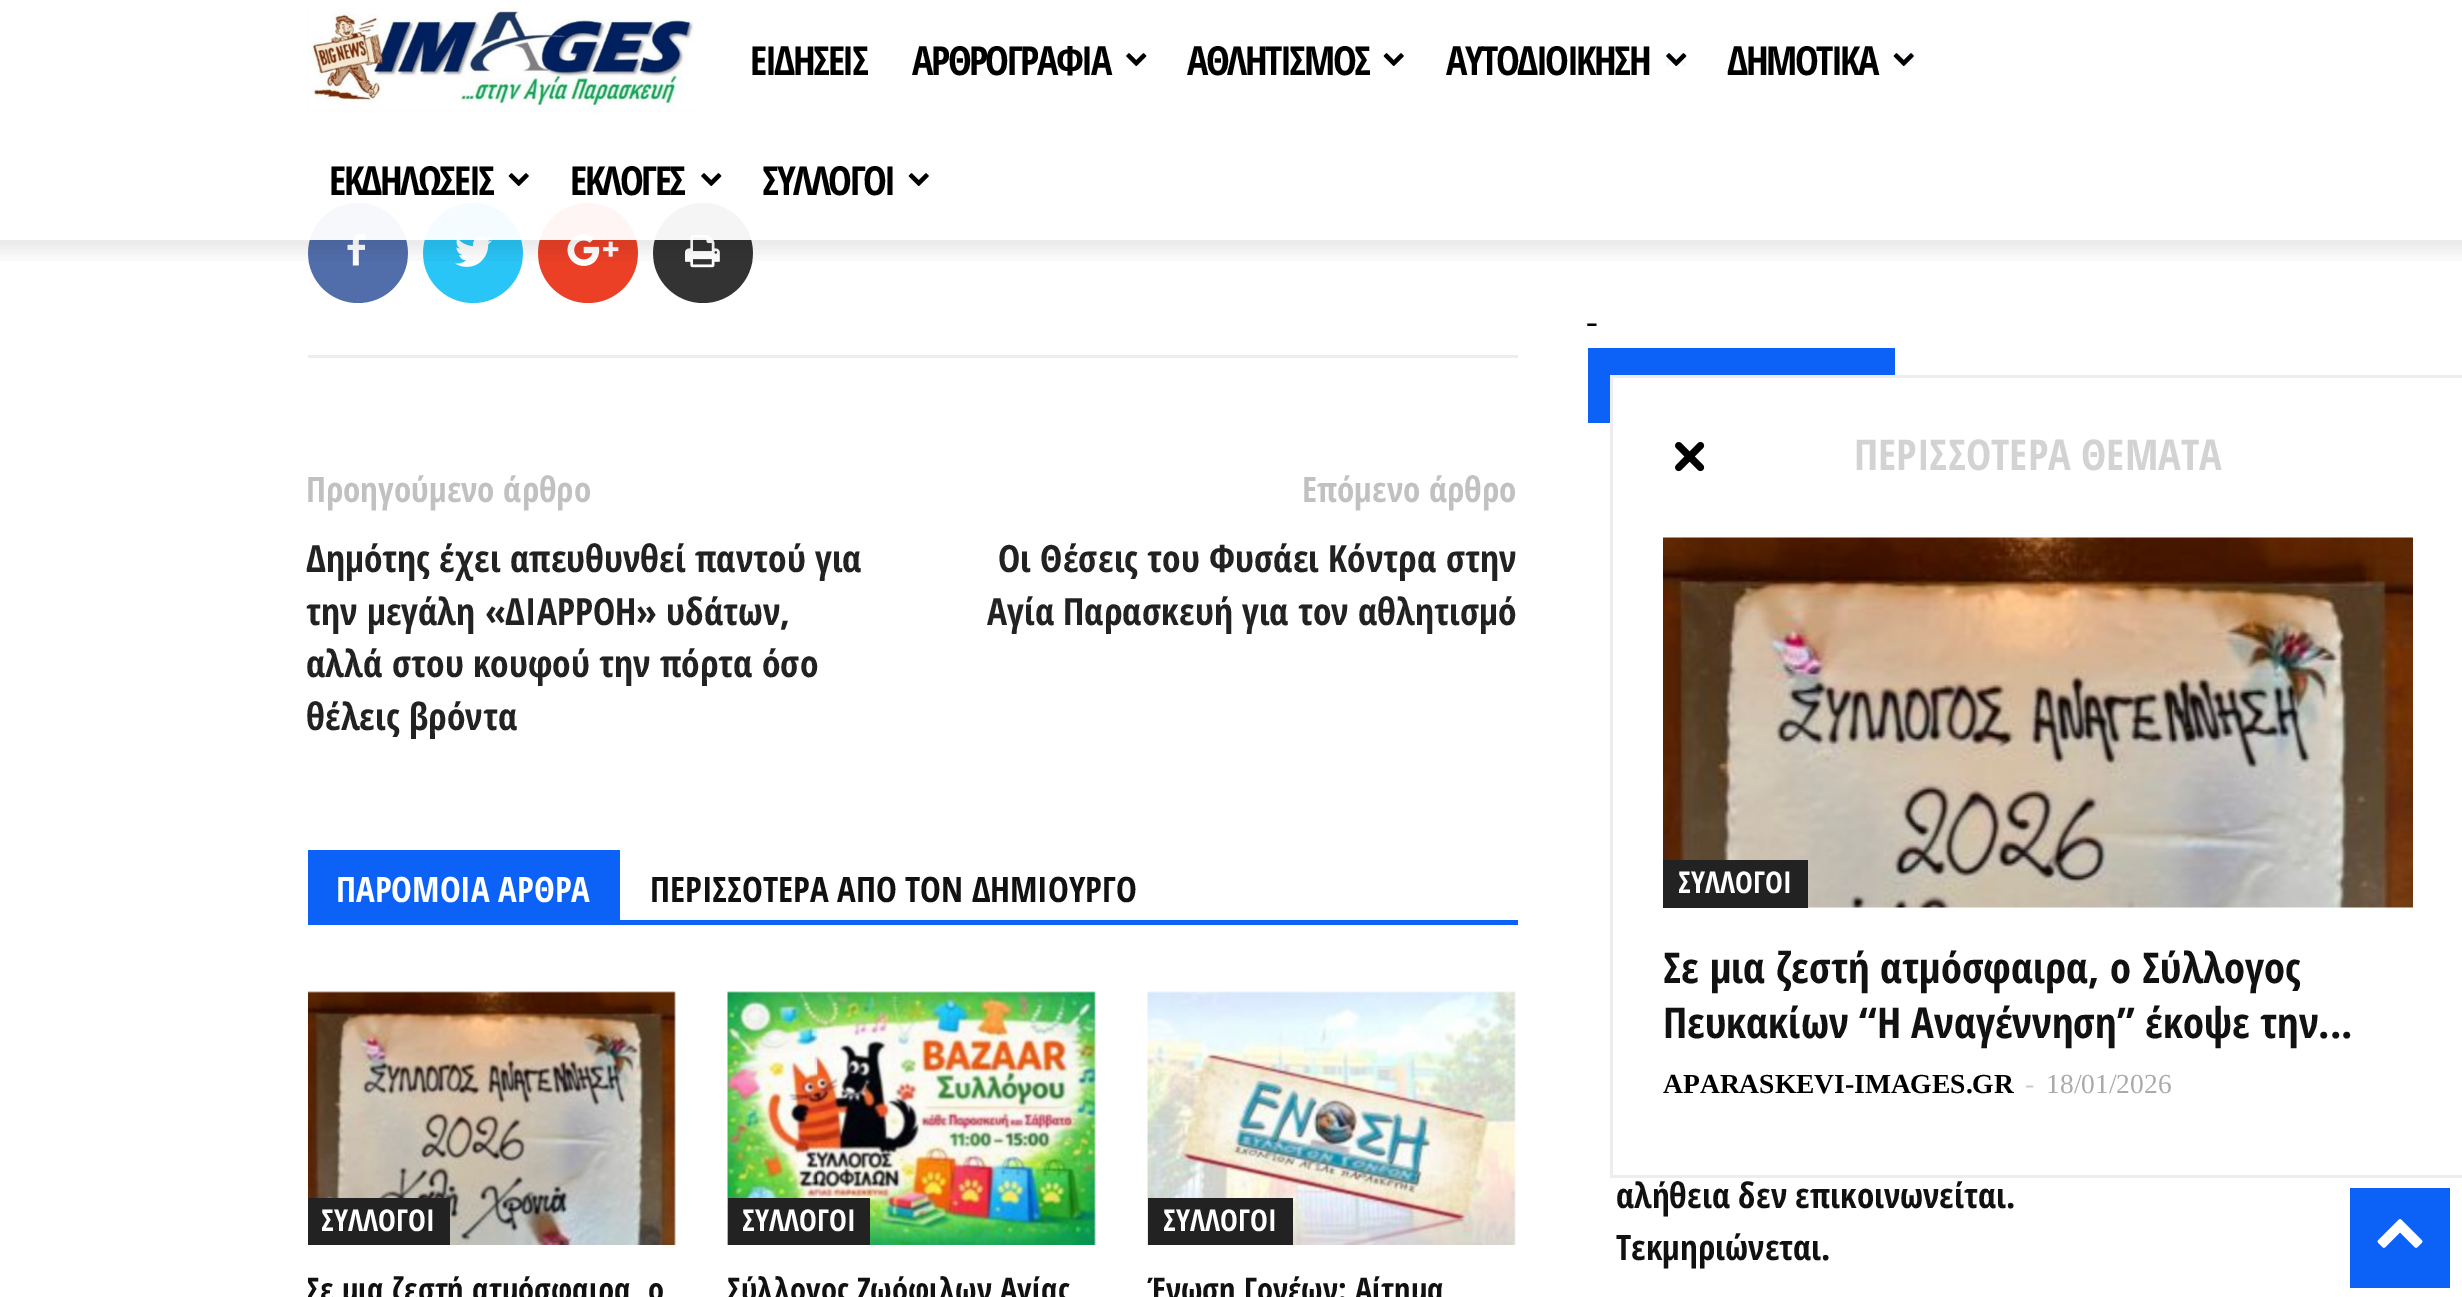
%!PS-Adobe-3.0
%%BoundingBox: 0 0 2462 1297
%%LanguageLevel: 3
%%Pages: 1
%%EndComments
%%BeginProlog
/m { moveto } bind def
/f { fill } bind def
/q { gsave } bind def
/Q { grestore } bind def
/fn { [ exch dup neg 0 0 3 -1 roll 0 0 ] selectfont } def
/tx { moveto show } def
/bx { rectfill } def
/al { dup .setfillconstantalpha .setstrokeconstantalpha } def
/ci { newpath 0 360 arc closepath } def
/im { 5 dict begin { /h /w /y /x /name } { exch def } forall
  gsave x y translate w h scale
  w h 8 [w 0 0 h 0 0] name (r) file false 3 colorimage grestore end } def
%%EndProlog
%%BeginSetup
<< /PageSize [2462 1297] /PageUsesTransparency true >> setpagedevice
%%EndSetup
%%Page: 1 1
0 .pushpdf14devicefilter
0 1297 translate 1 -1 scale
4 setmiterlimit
1 setgray
0 0 2462 1297 bx
0.929 setgray
694 60 824 3 bx
0.318 0.431 0.671 setrgbcolor
358 253 50 ci f
(image8.raw) 347 233 18 33 im
0.161 0.773 0.965 setrgbcolor
473 253 50 ci f
(image9.raw) 455 236 37 31 im
0.922 0.251 0.149 setrgbcolor
588 253 50 ci f
(image10.raw) 567 234 52 32 im
0.2 setgray
703 253 50 ci f
(image11.raw) 685 235 35 33 im
0.95 al
1 setgray
309 60 1209 180 bx
1 al
(image0.raw) 307 7 387 106 im
/OpenSansCondensed-Bold 40 fn
0 setgray
750 75 m -2.5 0 (ΕΙΔΗΣΕΙΣ) ashow
912 75 m -2.5 0 (ΑΡΘΡΟΓΡΑΦΙΑ) ashow
(image1.raw) 1126 53 21 13 im
1187 75 m -2.5 0 (ΑΘΛΗΤΙΣΜΟΣ) ashow
(image2.raw) 1383 53 21 13 im
1446 75 m -2.5 0 (ΑΥΤΟΔΙΟΙΚΗΣΗ) ashow
(image3.raw) 1666 53 21 13 im
1727 75 m -2.5 0 (ΔΗΜΟΤΙΚΑ) ashow
(image4.raw) 1893 53 21 13 im
329 195 m -2.5 0 (ΕΚΔΗΛΩΣΕΙΣ) ashow
(image5.raw) 508 173 21 13 im
570 195 m -2.5 0 (ΕΚΛΟΓΕΣ) ashow
(image6.raw) 701 173 21 13 im
762 195 m -2.5 0 (ΣΥΛΛΟΓΟΙ) ashow
(image5.raw) 908 173 21 13 im
(image7.raw) 0 240 2462 21 im
0.929 setgray
308 355 1210 3 bx
/OpenSansCondensed-Bold 35 fn
0.757 setgray
(Προηγούμενο άρθρο) 306 502 tx
/OpenSansCondensed-Bold 37.5 fn
0.133 setgray
(Δημότης έχει απευθυνθεί παντού για) 306 572 tx
(την μεγάλη «ΔΙΑΡΡΟΗ» υδάτων,) 306 625 tx
(αλλά στου κουφού την πόρτα όσο) 306 677 tx
(θέλεις βρόντα) 306 730 tx
/OpenSansCondensed-Bold 35 fn
0.757 setgray
(Επόμενο άρθρο) 1302 502 tx
/OpenSansCondensed-Bold 37.5 fn
0.133 setgray
(Οι Θέσεις του Φυσάει Κόντρα στην) 998 572 tx
(Αγία Παρασκευή για τον αθλητισμό) 987 625 tx
0.047 0.384 0.969 setrgbcolor
308 920 1210 5 bx
308 850 312 70 bx
/OpenSansCondensed-Bold 35 fn
1 setgray
(ΠΑΡΟΜΟΙΑ ΑΡΘΡΑ) 336 902 tx
0.067 setgray
(ΠΕΡΙΣΣΟΤΕΡΑ ΑΠΟ ΤΟΝ ΔΗΜΙΟΥΡΓΟ) 650 902 tx
(image12.raw) 308 991 368 254 im
0.133 setgray
308 1198 142 47 bx
/OpenSansCondensed-Bold 30 fn
1 setgray
(ΣΥΛΛΟΓΟΙ) 321 1231 tx
q
308 850 1210 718 rectclip
/OpenSansCondensed-Bold 32.5 fn
0.067 setgray
(Σε μια ζεστή ατμόσφαιρα, ο) 306 1301 tx
Q
(image13.raw) 727 991 369 254 im
0.133 setgray
728 1198 142 47 bx
1 setgray
(ΣΥΛΛΟΓΟΙ) 742 1231 tx
/OpenSansCondensed-Bold 32.5 fn
0.067 setgray
(Σύλλογος Ζωόφιλων Αγίας) 727 1301 tx
(image14.raw) 1147 991 369 254 im
0.133 setgray
1148 1198 145 47 bx
/OpenSansCondensed-Bold 30 fn
1 setgray
(ΣΥΛΛΟΓΟΙ) 1163 1231 tx
/OpenSansCondensed-Bold 32.5 fn
0.067 setgray
(Ένωση Γονέων: Αίτημα) 1148 1301 tx
/LiberationSerif-Regular 35 fn
0 setgray
(-) 1586 333 tx
0.047 0.384 0.969 setrgbcolor
1588 418 22 5 bx
1588 348 307 70 bx
/OpenSansCondensed-Bold 35 fn
0.067 setgray
(αλήθεια δεν επικοινωνείται.) 1616 1208 tx
(Τεκμηριώνεται.) 1616 1260 tx
1 setgray
1613 378 282 40 bx
0.929 setgray
1610 375 852 3 bx
1610 1175 852 3 bx
1610 375 3 803 bx
(image15.raw) 1675 442 30 30 im
/OpenSansCondensed-Bold 42.5 fn
0.827 setgray
(ΠΕΡΙΣΣΟΤΕΡΑ ΘΕΜΑΤΑ) 1854 470 tx
(image16.raw) 1663 537 750 371 im
0.133 setgray
1663 860 145 48 bx
/OpenSansCondensed-Bold 30 fn
1 setgray
(ΣΥΛΛΟΓΟΙ) 1678 893 tx
/OpenSansCondensed-Bold 42.5 fn
0.067 setgray
(Σε μια ζεστή ατμόσφαιρα, ο Σύλλογος) 1663 983 tx
(Πευκακίων “Η Αναγέννηση” έκοψε την...) 1663 1038 tx
/LiberationSerif-Bold 27.5 fn
0 setgray
(APARASKEVI-IMAGES.GR) 1663 1093 tx
/LiberationSerif-Regular 27.5 fn
0.8 setgray
(-) 2025 1093 tx
0.667 setgray
(18/01/2026) 2046 1093 tx
0.047 0.384 0.969 setrgbcolor
2350 1188 100 100 bx
(image17.raw) 2377 1219 46 29 im
.poppdf14devicefilter showpage
%%EOF
